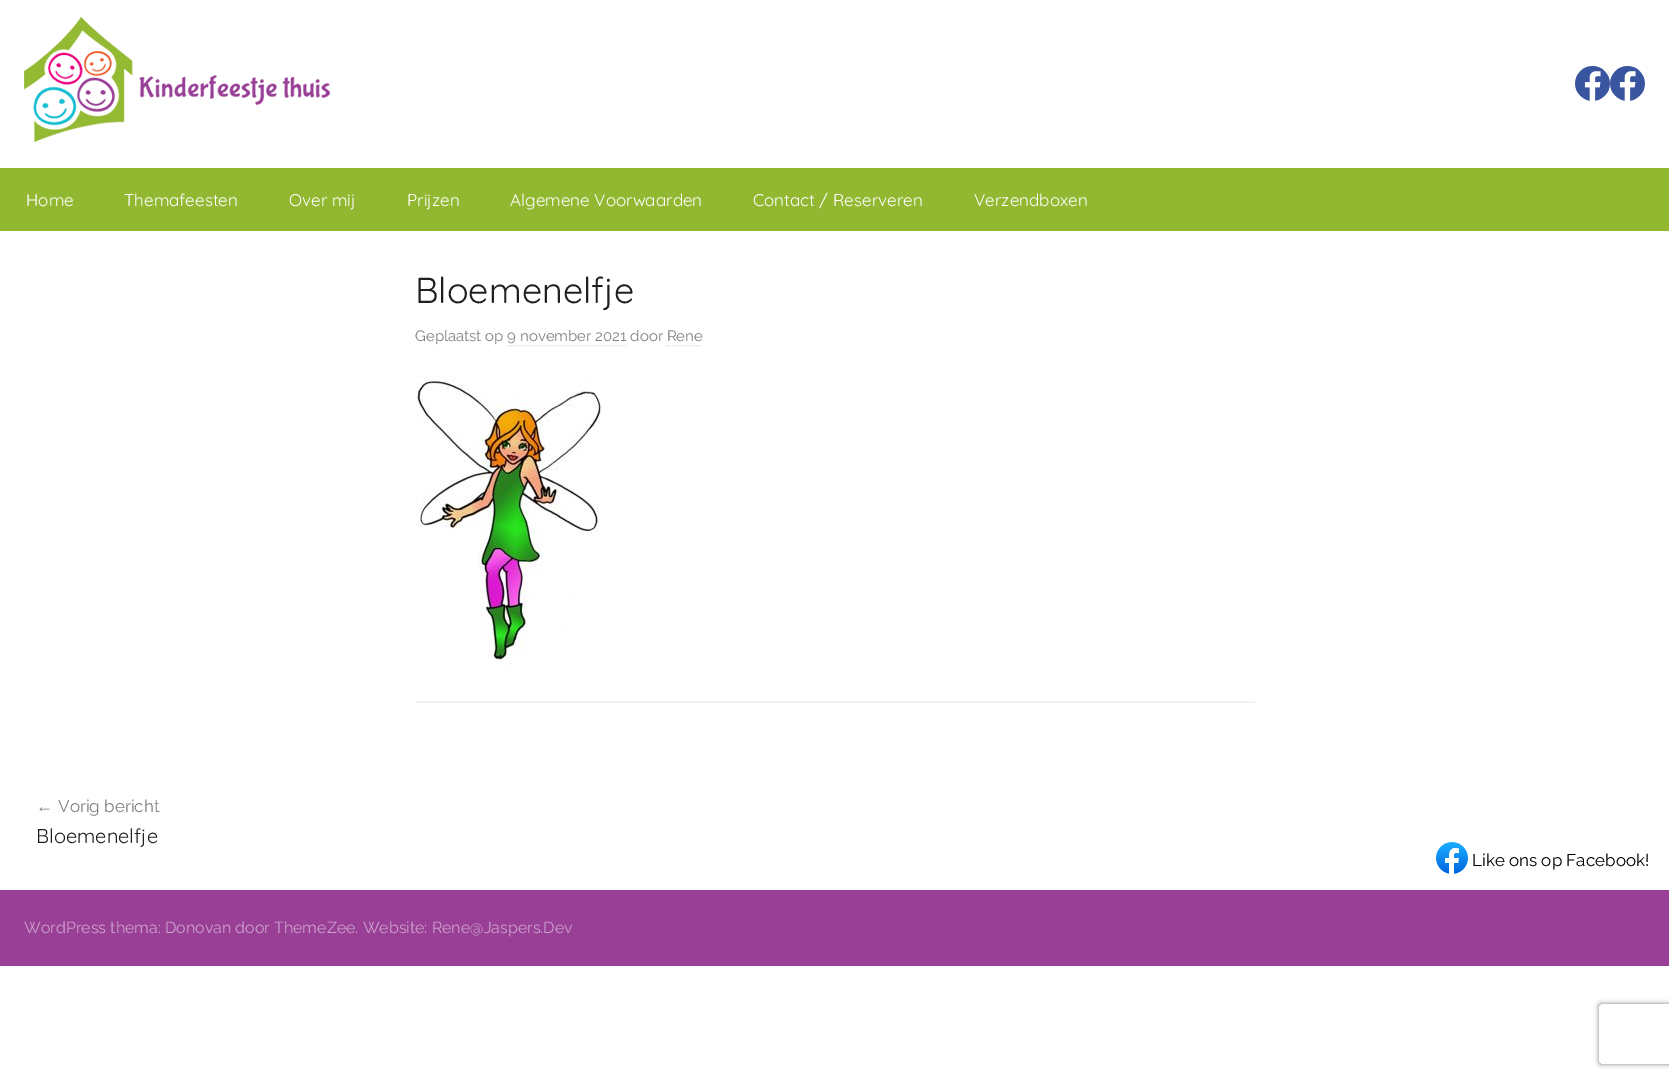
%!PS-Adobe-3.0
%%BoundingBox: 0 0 1669 1078
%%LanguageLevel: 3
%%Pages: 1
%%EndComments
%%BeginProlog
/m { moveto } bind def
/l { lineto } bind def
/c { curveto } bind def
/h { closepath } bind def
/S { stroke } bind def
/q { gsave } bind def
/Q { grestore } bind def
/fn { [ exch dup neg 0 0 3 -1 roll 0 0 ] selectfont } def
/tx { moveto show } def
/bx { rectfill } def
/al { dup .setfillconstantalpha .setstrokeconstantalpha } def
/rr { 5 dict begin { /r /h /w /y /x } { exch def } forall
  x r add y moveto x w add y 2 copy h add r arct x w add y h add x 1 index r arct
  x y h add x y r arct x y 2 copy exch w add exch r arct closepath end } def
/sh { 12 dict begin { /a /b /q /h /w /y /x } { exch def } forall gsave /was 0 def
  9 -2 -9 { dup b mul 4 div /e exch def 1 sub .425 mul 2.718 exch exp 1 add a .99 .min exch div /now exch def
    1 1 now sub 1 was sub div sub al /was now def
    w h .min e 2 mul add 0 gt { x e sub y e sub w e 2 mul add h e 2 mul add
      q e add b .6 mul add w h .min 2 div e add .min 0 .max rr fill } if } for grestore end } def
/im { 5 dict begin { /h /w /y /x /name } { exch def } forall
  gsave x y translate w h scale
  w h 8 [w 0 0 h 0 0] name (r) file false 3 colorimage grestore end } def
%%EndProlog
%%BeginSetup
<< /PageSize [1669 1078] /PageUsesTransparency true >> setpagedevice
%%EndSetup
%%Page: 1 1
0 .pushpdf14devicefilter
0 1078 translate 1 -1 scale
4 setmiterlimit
1 setgray
0 0 1669 1078 bx
(image0.raw) 24 17 306 125 im
(image1.raw) 1575 66 35 35 im
(image1.raw) 1610 66 35 35 im
0.573 0.722 0.196 setrgbcolor
0 168 1669 63 bx
/Quicksand-Regular 17 fn
1 setgray
(Home) 26 206 tx
(Themafeesten) 124 206 tx
(Over mij) 289 206 tx
(Prijzen) 407 206 tx
(Algemene Voorwaarden) 510 206 tx
(Contact / Reserveren) 753 206 tx
(Verzendboxen) 974 206 tx
/Quicksand-Regular 36 fn
0.125 setgray
(Bloemenelfje) 415 303 tx
/Raleway-Regular 15 fn
0.502 setgray
(Geplaatst op 9 november 2021 door Rene) 415 341 tx
0.851 setgray
[1 1] 0 setdash
507 345.5 m 626 345.5 l S
666 345.5 m 702 345.5 l S
(image2.raw) 415 375 187 292 im
0.949 setgray
415 701 840 2 bx
/LiberationSans-Regular 17 fn
0.502 setgray
(←) 36 812 tx
/Raleway-Regular 17 fn
(Vorig bericht) 58 812 tx
/Quicksand-Regular 20 fn
0.125 setgray
(Bloemenelfje) 36 843 tx
(image3.raw) 1436 842 32 32 im
/Raleway-Regular 17 fn
0 setgray
(Like ons op Facebook!) 1472 866 tx
0.6 0.251 0.588 setrgbcolor
0 890 1669 76 bx
/Raleway-Regular 16 fn
0.8 0.627 0.796 setrgbcolor
(WordPress thema: Donovan door ThemeZee. Website: Rene@Jaspers.Dev) 24 933 tx
q
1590 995 m 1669 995 l 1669 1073 l 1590 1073 l h 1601 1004 m 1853 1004 l 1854 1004 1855 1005 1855 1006 c 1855 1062 l 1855 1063 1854 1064 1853 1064 c 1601 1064 l 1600 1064 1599 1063 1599 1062 c 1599 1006 l 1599 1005 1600 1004 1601 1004 c h eoclip newpath
0.502 setgray
1599 1004 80 60 2 2.5 1 sh
Q
.poppdf14devicefilter showpage
%%EOF
